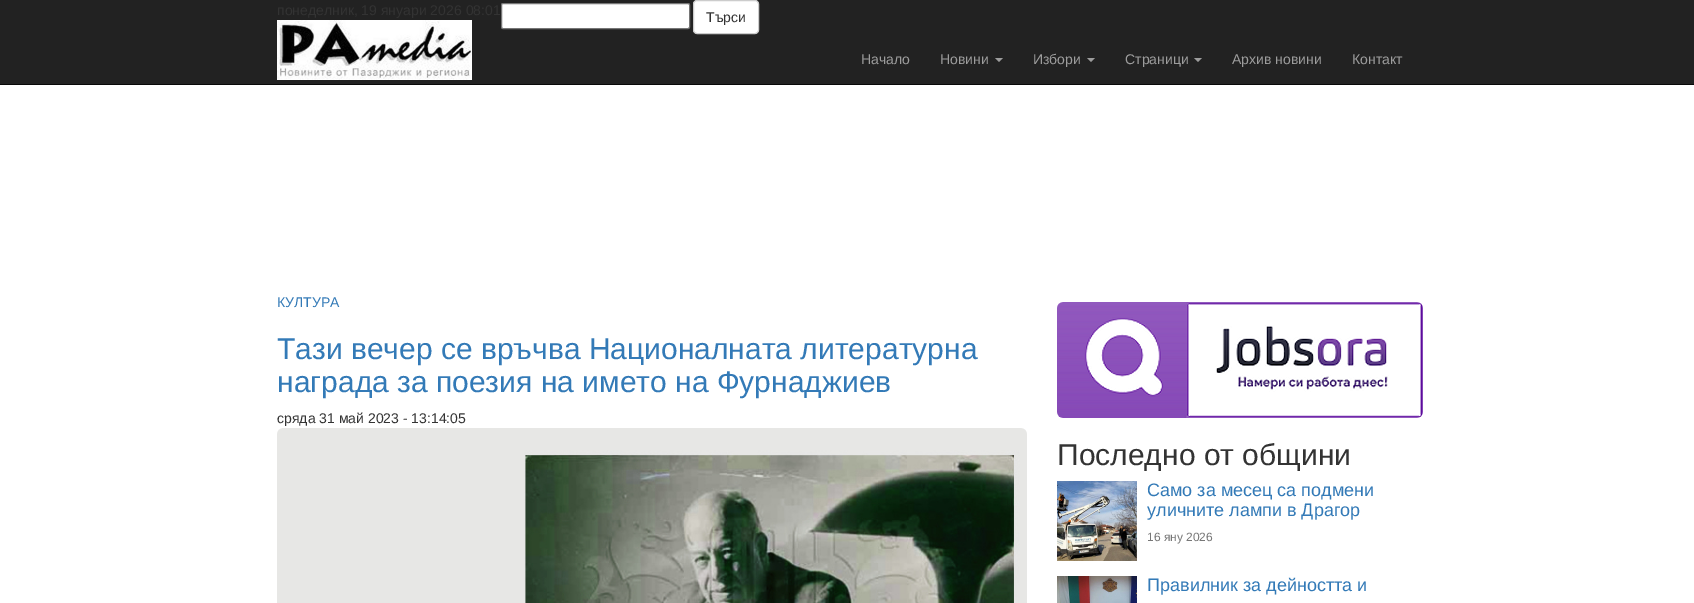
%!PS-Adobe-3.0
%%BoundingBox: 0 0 1694 603
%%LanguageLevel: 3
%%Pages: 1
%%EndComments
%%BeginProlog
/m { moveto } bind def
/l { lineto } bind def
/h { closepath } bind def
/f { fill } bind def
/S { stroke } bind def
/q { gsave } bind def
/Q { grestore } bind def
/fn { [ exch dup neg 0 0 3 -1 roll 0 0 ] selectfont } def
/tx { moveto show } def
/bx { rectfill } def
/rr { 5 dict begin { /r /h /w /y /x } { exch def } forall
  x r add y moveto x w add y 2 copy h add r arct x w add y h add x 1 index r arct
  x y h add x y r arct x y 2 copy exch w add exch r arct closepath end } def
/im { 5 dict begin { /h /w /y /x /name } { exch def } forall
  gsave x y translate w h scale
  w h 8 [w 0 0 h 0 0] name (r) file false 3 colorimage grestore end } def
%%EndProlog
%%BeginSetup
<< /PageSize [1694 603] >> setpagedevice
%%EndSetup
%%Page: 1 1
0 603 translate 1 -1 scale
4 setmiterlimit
1 setgray
0 0 1694 603 bx
0.133 setgray
0 0 1694 84 bx
0.031 setgray
0 84 1694 1 bx
/LiberationSans-Regular 14 fn
0.2 setgray
(понеделник, 19 януари 2026 08:01) 277 15 tx
(image0.raw) 277 20 195 60 im
1 setgray
501.5 3.5 188 25 1.5 rr q f Q
0.463 setgray
S
1 setgray
693.5 0.5 65 33 3.5 rr q f Q
0.8 setgray
S
0.2 setgray
(Търси) 706 22 tx
0.616 setgray
(Начало) 861 64 tx
(Новини) 940 64 tx
995 58 m 1003 58 l 999 62 l h f
(Избори) 1033 64 tx
1087 58 m 1095 58 l 1091 62 l h f
(Страници) 1125 64 tx
1194 58 m 1202 58 l 1198 62 l h f
(Архив новини) 1232 64 tx
(Контакт) 1352 64 tx
0.2 0.478 0.718 setrgbcolor
(КУЛТУРА) 277 307 tx
/LiberationSans-Regular 30 fn
(Тази вечер се връчва Националната литературна) 277 359 tx
(награда за поезия на името на Фурнаджиев) 277 392 tx
/LiberationSans-Regular 14 fn
0.2 setgray
(сряда 31 май 2023 - 13:14:05) 277 423 tx
(image1.raw) 277 428 750 175 im
(image2.raw) 1057 302 366 116 im
/LiberationSans-Regular 30 fn
(Последно от общини) 1057 465 tx
(image3.raw) 1057 481 80 80 im
/LiberationSans-Regular 18 fn
0.2 0.478 0.718 setrgbcolor
(Само за месец са подмени) 1147 496 tx
(уличните лампи в Драгор) 1147 516 tx
/LiberationSans-Regular 12 fn
0.467 setgray
(16 яну 2026) 1147 541 tx
(image4.raw) 1057 576 80 27 im
/LiberationSans-Regular 18 fn
0.2 0.478 0.718 setrgbcolor
(Правилник за дейността и) 1147 591 tx
showpage
%%EOF
